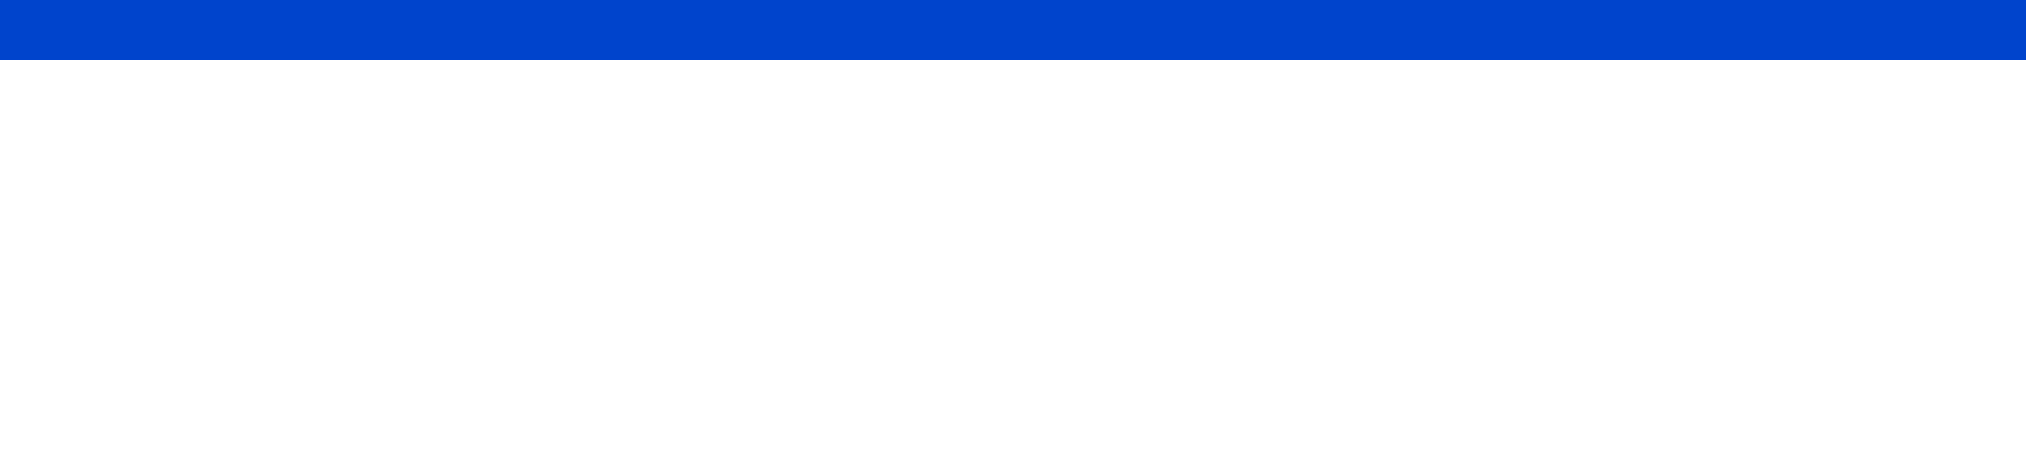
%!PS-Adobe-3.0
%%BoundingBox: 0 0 2026 472
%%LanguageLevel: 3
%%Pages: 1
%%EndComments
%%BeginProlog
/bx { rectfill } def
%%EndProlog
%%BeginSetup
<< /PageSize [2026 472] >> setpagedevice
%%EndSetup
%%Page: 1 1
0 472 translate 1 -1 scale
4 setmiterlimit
0 0.267 0.8 setrgbcolor
0 0 2026 472 bx
1 setgray
0 60 2026 412 bx
showpage
%%EOF
